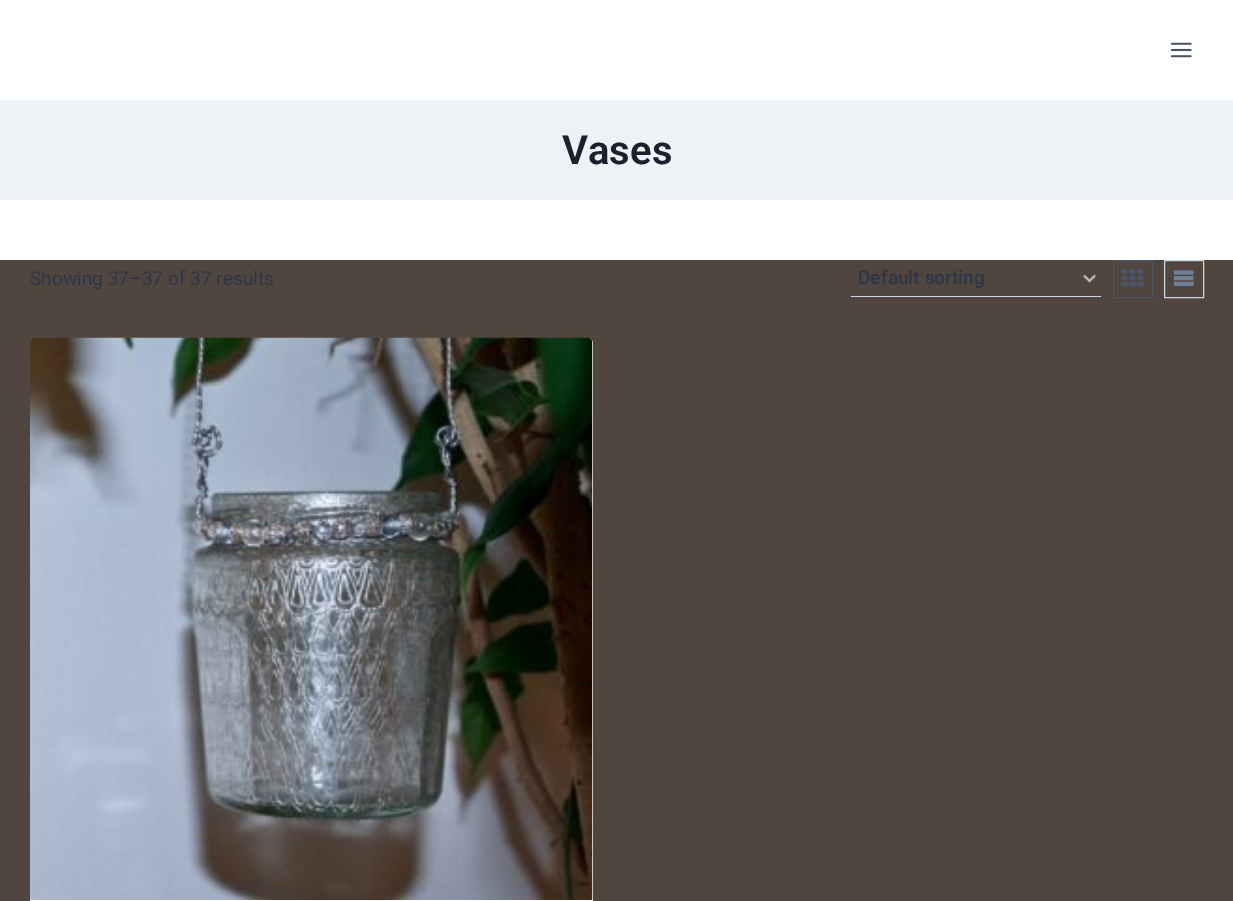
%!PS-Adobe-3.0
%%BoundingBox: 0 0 1233 901
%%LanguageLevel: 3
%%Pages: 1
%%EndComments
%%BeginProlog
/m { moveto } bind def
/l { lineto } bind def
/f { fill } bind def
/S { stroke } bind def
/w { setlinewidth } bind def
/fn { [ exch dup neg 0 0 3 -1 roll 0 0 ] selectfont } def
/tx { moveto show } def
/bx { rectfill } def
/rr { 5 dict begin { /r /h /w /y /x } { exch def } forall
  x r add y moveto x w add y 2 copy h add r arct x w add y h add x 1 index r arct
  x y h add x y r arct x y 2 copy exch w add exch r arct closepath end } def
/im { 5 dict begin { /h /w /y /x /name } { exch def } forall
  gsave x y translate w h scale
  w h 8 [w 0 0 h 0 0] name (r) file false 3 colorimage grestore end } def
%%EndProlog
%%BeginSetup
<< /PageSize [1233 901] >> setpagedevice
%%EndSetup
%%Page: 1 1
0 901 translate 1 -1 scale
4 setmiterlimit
1 setgray
0 0 1233 901 bx
(image0.raw) 1170 42 22 16 im
0.929 0.949 0.969 setrgbcolor
0 100 1233 100 bx
/Roboto-SemiBold 40 fn
0.102 0.125 0.173 setrgbcolor
(Vases) 562 164 tx
0.318 0.271 0.247 setrgbcolor
0 260 1233 641 bx
/Roboto-Regular 19.1 fn
0.176 0.216 0.282 setrgbcolor
(Showing 37–37 of 37 results) 30 285 tx
0.733 setgray
1.8 w
1084 275.5 m 1089.5 281 l 1095 275.5 l S
0.796 0.835 0.878 setrgbcolor
851 296 250 1 bx
/Roboto-SemiBold 19.1 fn
0.176 0.216 0.282 setrgbcolor
(Default sorting) 858 284 tx
0.29 0.333 0.408 setrgbcolor
1 w
1113.5 260.5 39 37 rectstroke
(image1.raw) 1121 269 23 18 im
0.796 0.835 0.878 setrgbcolor
1164.5 260.5 39 37 rectstroke
(image2.raw) 1173 270 21 16 im
1 setgray
30 338 563 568 5 rr f
(image3.raw) 30 337 563 563 im
showpage
%%EOF
